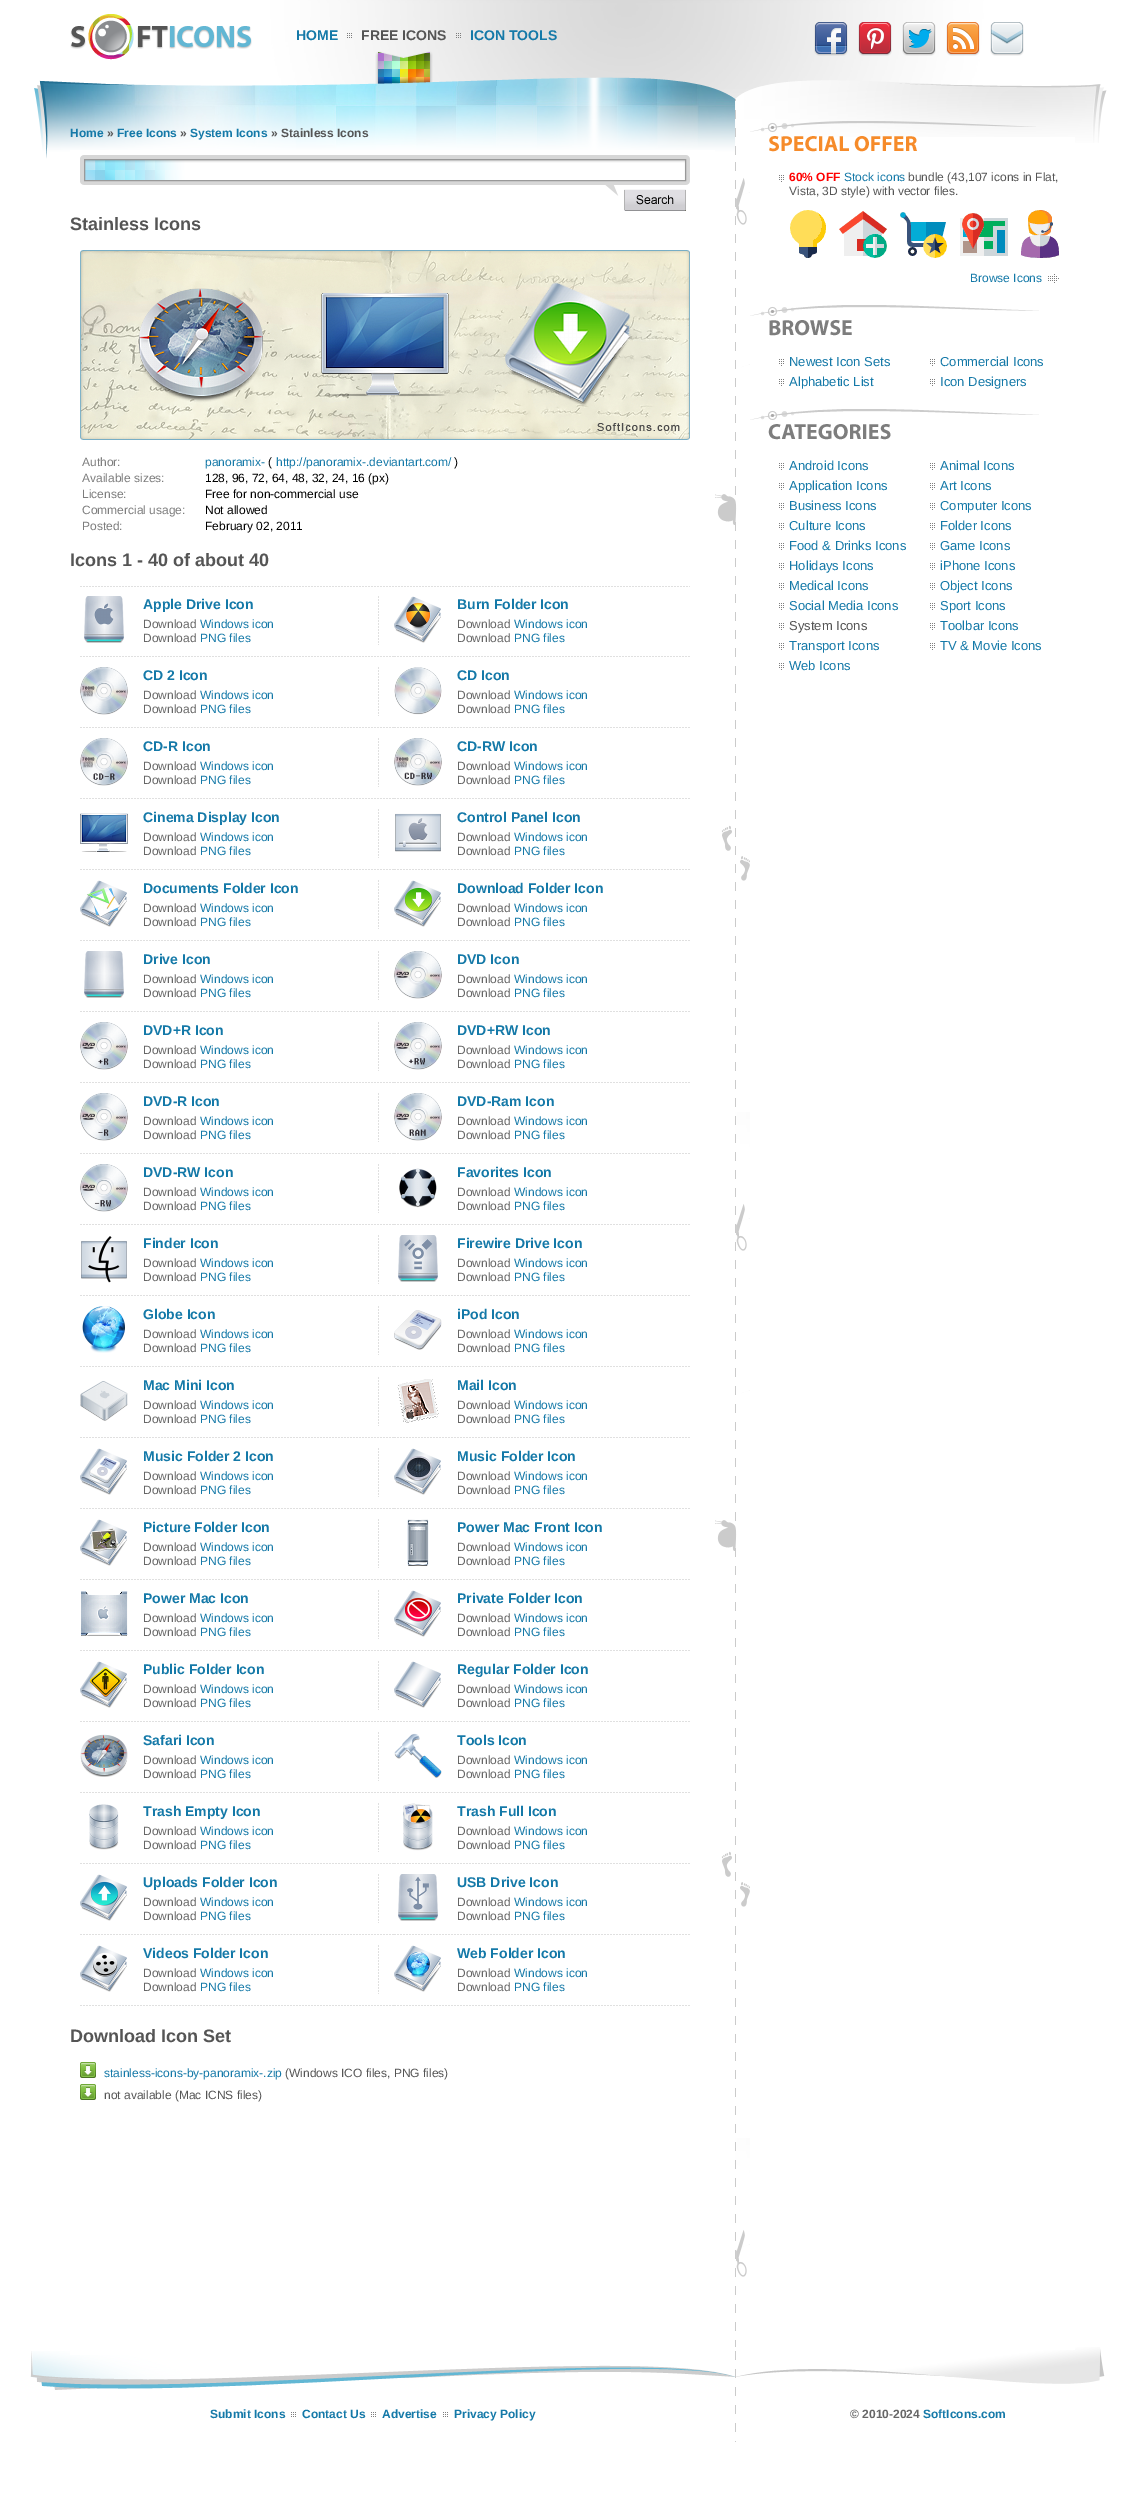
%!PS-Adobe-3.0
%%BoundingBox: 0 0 1145 2507
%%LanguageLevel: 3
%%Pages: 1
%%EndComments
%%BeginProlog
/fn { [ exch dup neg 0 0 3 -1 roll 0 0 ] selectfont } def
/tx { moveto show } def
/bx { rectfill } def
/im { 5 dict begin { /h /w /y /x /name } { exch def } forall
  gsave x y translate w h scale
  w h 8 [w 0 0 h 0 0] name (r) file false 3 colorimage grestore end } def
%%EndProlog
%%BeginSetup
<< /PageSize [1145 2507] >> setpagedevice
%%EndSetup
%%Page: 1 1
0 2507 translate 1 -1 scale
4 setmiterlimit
1 setgray
0 0 1145 2507 bx
(image0.raw) 70 0 1005 86 im
(image1.raw) 70 14 182 46 im
(image2.raw) 287 33 61 53 im
/LiberationSans-Bold 14 fn
0.078 0.475 0.659 setrgbcolor
(HOME) 296 40 tx
(image3.raw) 349 33 109 53 im
0.333 setgray
(FREE ICONS) 361 40 tx
(image4.raw) 458 33 108 53 im
0.078 0.475 0.659 setrgbcolor
(ICON TOOLS) 470 40 tx
(image5.raw) 814 22 34 34 im
(image6.raw) 858 22 34 34 im
(image7.raw) 902 22 34 34 im
(image8.raw) 946 22 34 34 im
(image9.raw) 990 22 34 34 im
(image10.raw) 37 80 33 6 im
(image11.raw) 1075 84 26 2 im
(image12.raw) 34 86 36 73 im
(image13.raw) 715 155 35 2192 im
(image14.raw) 715 86 35 69 im
(image15.raw) 1075 86 32 57 im
(image16.raw) 70 86 645 64 im
/LiberationSans-Bold 12 fn
(Home) 70 137 tx
0.333 setgray
(») 107 137 tx
0.078 0.475 0.659 setrgbcolor
(Free Icons) 117 137 tx
0.333 setgray
(») 180 137 tx
0.078 0.475 0.659 setrgbcolor
(System Icons) 190 137 tx
0.333 setgray
(» Stainless Icons) 271 137 tx
(image17.raw) 80 155 610 41 im
(image18.raw) 85 160 600 20 im
0.6 setgray
84.5 159.5 601 21 rectstroke
(image19.raw) 624 189 62 22 im
/LiberationSans-Bold 18 fn
0.333 setgray
(Stainless Icons) 70 230 tx
(image20.raw) 80 250 610 190 im
/LiberationSans-Regular 12 fn
0.49 setgray
(Author:) 82 466 tx
0.078 0.475 0.659 setrgbcolor
(panoramix-) 205 466 tx
0 setgray
(\() 268 466 tx
0.078 0.475 0.659 setrgbcolor
(http://panoramix-.deviantart.com/) 276 466 tx
0 setgray
(\)) 454 466 tx
0.49 setgray
(Available sizes:) 82 482 tx
0 setgray
(128, 96, 72, 64, 48, 32, 24, 16 \(px\)) 205 482 tx
0.49 setgray
(License:) 82 498 tx
0 setgray
(Free for non-commercial use) 205 498 tx
0.49 setgray
(Commercial usage:) 82 514 tx
0 setgray
(Not allowed) 205 514 tx
0.49 setgray
(Posted:) 82 530 tx
0 setgray
(February 02, 2011) 205 530 tx
/LiberationSans-Bold 18 fn
0.333 setgray
(Icons 1 - 40 of about 40) 70 566 tx
(image21.raw) 80 586 610 1 im
(image22.raw) 80 656 47 1 im
(image23.raw) 84 596 40 47 im
(image24.raw) 128 656 266 1 im
(image25.raw) 378 596 1 49 im
/LiberationSans-Bold 14 fn
0.078 0.475 0.659 setrgbcolor
(Apple Drive Icon) 143 609 tx
/LiberationSans-Regular 12 fn
0.4 setgray
(Download) 143 628 tx
0.078 0.475 0.659 setrgbcolor
(Windows icon) 200 628 tx
0.4 setgray
(Download) 143 642 tx
0.078 0.475 0.659 setrgbcolor
(PNG files) 200 642 tx
(image22.raw) 394 656 47 1 im
(image26.raw) 394 596 47 47 im
(image27.raw) 442 656 248 1 im
/LiberationSans-Bold 14 fn
(Burn Folder Icon) 457 609 tx
/LiberationSans-Regular 12 fn
0.4 setgray
(Download) 457 628 tx
0.078 0.475 0.659 setrgbcolor
(Windows icon) 514 628 tx
0.4 setgray
(Download) 457 642 tx
0.078 0.475 0.659 setrgbcolor
(PNG files) 514 642 tx
(image22.raw) 80 727 47 1 im
(image28.raw) 80 667 48 48 im
(image24.raw) 128 727 266 1 im
(image25.raw) 378 667 1 49 im
/LiberationSans-Bold 14 fn
(CD 2 Icon) 143 680 tx
/LiberationSans-Regular 12 fn
0.4 setgray
(Download) 143 699 tx
0.078 0.475 0.659 setrgbcolor
(Windows icon) 200 699 tx
0.4 setgray
(Download) 143 713 tx
0.078 0.475 0.659 setrgbcolor
(PNG files) 200 713 tx
(image22.raw) 394 727 47 1 im
(image29.raw) 394 667 48 48 im
(image27.raw) 442 727 248 1 im
/LiberationSans-Bold 14 fn
(CD Icon) 457 680 tx
/LiberationSans-Regular 12 fn
0.4 setgray
(Download) 457 699 tx
0.078 0.475 0.659 setrgbcolor
(Windows icon) 514 699 tx
0.4 setgray
(Download) 457 713 tx
0.078 0.475 0.659 setrgbcolor
(PNG files) 514 713 tx
(image22.raw) 80 798 47 1 im
(image30.raw) 80 738 48 48 im
(image24.raw) 128 798 266 1 im
(image25.raw) 378 738 1 49 im
/LiberationSans-Bold 14 fn
(CD-R Icon) 143 751 tx
/LiberationSans-Regular 12 fn
0.4 setgray
(Download) 143 770 tx
0.078 0.475 0.659 setrgbcolor
(Windows icon) 200 770 tx
0.4 setgray
(Download) 143 784 tx
0.078 0.475 0.659 setrgbcolor
(PNG files) 200 784 tx
(image22.raw) 394 798 47 1 im
(image31.raw) 394 738 48 48 im
(image27.raw) 442 798 248 1 im
/LiberationSans-Bold 14 fn
(CD-RW Icon) 457 751 tx
/LiberationSans-Regular 12 fn
0.4 setgray
(Download) 457 770 tx
0.078 0.475 0.659 setrgbcolor
(Windows icon) 514 770 tx
0.4 setgray
(Download) 457 784 tx
0.078 0.475 0.659 setrgbcolor
(PNG files) 514 784 tx
(image22.raw) 80 869 47 1 im
(image32.raw) 80 813 48 39 im
(image24.raw) 128 869 266 1 im
(image25.raw) 378 809 1 49 im
/LiberationSans-Bold 14 fn
(Cinema Display Icon) 143 822 tx
/LiberationSans-Regular 12 fn
0.4 setgray
(Download) 143 841 tx
0.078 0.475 0.659 setrgbcolor
(Windows icon) 200 841 tx
0.4 setgray
(Download) 143 855 tx
0.078 0.475 0.659 setrgbcolor
(PNG files) 200 855 tx
(image22.raw) 394 869 47 1 im
(image33.raw) 395 813 46 39 im
(image27.raw) 442 869 248 1 im
/LiberationSans-Bold 14 fn
(Control Panel Icon) 457 822 tx
/LiberationSans-Regular 12 fn
0.4 setgray
(Download) 457 841 tx
0.078 0.475 0.659 setrgbcolor
(Windows icon) 514 841 tx
0.4 setgray
(Download) 457 855 tx
0.078 0.475 0.659 setrgbcolor
(PNG files) 514 855 tx
(image22.raw) 80 940 47 1 im
(image34.raw) 80 880 47 47 im
(image24.raw) 128 940 266 1 im
(image25.raw) 378 880 1 49 im
/LiberationSans-Bold 14 fn
(Documents Folder Icon) 143 893 tx
/LiberationSans-Regular 12 fn
0.4 setgray
(Download) 143 912 tx
0.078 0.475 0.659 setrgbcolor
(Windows icon) 200 912 tx
0.4 setgray
(Download) 143 926 tx
0.078 0.475 0.659 setrgbcolor
(PNG files) 200 926 tx
(image22.raw) 394 940 47 1 im
(image35.raw) 394 880 47 47 im
(image27.raw) 442 940 248 1 im
/LiberationSans-Bold 14 fn
(Download Folder Icon) 457 893 tx
/LiberationSans-Regular 12 fn
0.4 setgray
(Download) 457 912 tx
0.078 0.475 0.659 setrgbcolor
(Windows icon) 514 912 tx
0.4 setgray
(Download) 457 926 tx
0.078 0.475 0.659 setrgbcolor
(PNG files) 514 926 tx
(image22.raw) 80 1011 47 1 im
(image36.raw) 84 951 40 47 im
(image24.raw) 128 1011 266 1 im
(image25.raw) 378 951 1 49 im
/LiberationSans-Bold 14 fn
(Drive Icon) 143 964 tx
/LiberationSans-Regular 12 fn
0.4 setgray
(Download) 143 983 tx
0.078 0.475 0.659 setrgbcolor
(Windows icon) 200 983 tx
0.4 setgray
(Download) 143 997 tx
0.078 0.475 0.659 setrgbcolor
(PNG files) 200 997 tx
(image22.raw) 394 1011 47 1 im
(image37.raw) 394 951 48 48 im
(image27.raw) 442 1011 248 1 im
/LiberationSans-Bold 14 fn
(DVD Icon) 457 964 tx
/LiberationSans-Regular 12 fn
0.4 setgray
(Download) 457 983 tx
0.078 0.475 0.659 setrgbcolor
(Windows icon) 514 983 tx
0.4 setgray
(Download) 457 997 tx
0.078 0.475 0.659 setrgbcolor
(PNG files) 514 997 tx
(image22.raw) 80 1082 47 1 im
(image38.raw) 80 1022 48 48 im
(image24.raw) 128 1082 266 1 im
(image25.raw) 378 1022 1 49 im
/LiberationSans-Bold 14 fn
(DVD+R Icon) 143 1035 tx
/LiberationSans-Regular 12 fn
0.4 setgray
(Download) 143 1054 tx
0.078 0.475 0.659 setrgbcolor
(Windows icon) 200 1054 tx
0.4 setgray
(Download) 143 1068 tx
0.078 0.475 0.659 setrgbcolor
(PNG files) 200 1068 tx
(image22.raw) 394 1082 47 1 im
(image39.raw) 394 1022 48 48 im
(image27.raw) 442 1082 248 1 im
/LiberationSans-Bold 14 fn
(DVD+RW Icon) 457 1035 tx
/LiberationSans-Regular 12 fn
0.4 setgray
(Download) 457 1054 tx
0.078 0.475 0.659 setrgbcolor
(Windows icon) 514 1054 tx
0.4 setgray
(Download) 457 1068 tx
0.078 0.475 0.659 setrgbcolor
(PNG files) 514 1068 tx
(image22.raw) 80 1153 47 1 im
(image40.raw) 80 1093 48 48 im
(image24.raw) 128 1153 266 1 im
(image25.raw) 378 1093 1 49 im
/LiberationSans-Bold 14 fn
(DVD-R Icon) 143 1106 tx
/LiberationSans-Regular 12 fn
0.4 setgray
(Download) 143 1125 tx
0.078 0.475 0.659 setrgbcolor
(Windows icon) 200 1125 tx
0.4 setgray
(Download) 143 1139 tx
0.078 0.475 0.659 setrgbcolor
(PNG files) 200 1139 tx
(image22.raw) 394 1153 47 1 im
(image41.raw) 394 1093 48 48 im
(image27.raw) 442 1153 248 1 im
/LiberationSans-Bold 14 fn
(DVD-Ram Icon) 457 1106 tx
/LiberationSans-Regular 12 fn
0.4 setgray
(Download) 457 1125 tx
0.078 0.475 0.659 setrgbcolor
(Windows icon) 514 1125 tx
0.4 setgray
(Download) 457 1139 tx
0.078 0.475 0.659 setrgbcolor
(PNG files) 514 1139 tx
(image22.raw) 80 1224 47 1 im
(image42.raw) 80 1164 48 48 im
(image24.raw) 128 1224 266 1 im
(image25.raw) 378 1164 1 49 im
/LiberationSans-Bold 14 fn
(DVD-RW Icon) 143 1177 tx
/LiberationSans-Regular 12 fn
0.4 setgray
(Download) 143 1196 tx
0.078 0.475 0.659 setrgbcolor
(Windows icon) 200 1196 tx
0.4 setgray
(Download) 143 1210 tx
0.078 0.475 0.659 setrgbcolor
(PNG files) 200 1210 tx
(image22.raw) 394 1224 47 1 im
(image43.raw) 399 1168 38 40 im
(image27.raw) 442 1224 248 1 im
/LiberationSans-Bold 14 fn
(Favorites Icon) 457 1177 tx
/LiberationSans-Regular 12 fn
0.4 setgray
(Download) 457 1196 tx
0.078 0.475 0.659 setrgbcolor
(Windows icon) 514 1196 tx
0.4 setgray
(Download) 457 1210 tx
0.078 0.475 0.659 setrgbcolor
(PNG files) 514 1210 tx
(image22.raw) 80 1295 47 1 im
(image44.raw) 81 1236 46 47 im
(image24.raw) 128 1295 266 1 im
(image25.raw) 378 1235 1 49 im
/LiberationSans-Bold 14 fn
(Finder Icon) 143 1248 tx
/LiberationSans-Regular 12 fn
0.4 setgray
(Download) 143 1267 tx
0.078 0.475 0.659 setrgbcolor
(Windows icon) 200 1267 tx
0.4 setgray
(Download) 143 1281 tx
0.078 0.475 0.659 setrgbcolor
(PNG files) 200 1281 tx
(image22.raw) 394 1295 47 1 im
(image45.raw) 398 1235 40 47 im
(image27.raw) 442 1295 248 1 im
/LiberationSans-Bold 14 fn
(Firewire Drive Icon) 457 1248 tx
/LiberationSans-Regular 12 fn
0.4 setgray
(Download) 457 1267 tx
0.078 0.475 0.659 setrgbcolor
(Windows icon) 514 1267 tx
0.4 setgray
(Download) 457 1281 tx
0.078 0.475 0.659 setrgbcolor
(PNG files) 514 1281 tx
(image22.raw) 80 1366 47 1 im
(image46.raw) 82 1306 43 47 im
(image24.raw) 128 1366 266 1 im
(image25.raw) 378 1306 1 49 im
/LiberationSans-Bold 14 fn
(Globe Icon) 143 1319 tx
/LiberationSans-Regular 12 fn
0.4 setgray
(Download) 143 1338 tx
0.078 0.475 0.659 setrgbcolor
(Windows icon) 200 1338 tx
0.4 setgray
(Download) 143 1352 tx
0.078 0.475 0.659 setrgbcolor
(PNG files) 200 1352 tx
(image22.raw) 394 1366 47 1 im
(image47.raw) 394 1310 48 40 im
(image27.raw) 442 1366 248 1 im
/LiberationSans-Bold 14 fn
(iPod Icon) 457 1319 tx
/LiberationSans-Regular 12 fn
0.4 setgray
(Download) 457 1338 tx
0.078 0.475 0.659 setrgbcolor
(Windows icon) 514 1338 tx
0.4 setgray
(Download) 457 1352 tx
0.078 0.475 0.659 setrgbcolor
(PNG files) 514 1352 tx
(image22.raw) 80 1437 47 1 im
(image48.raw) 80 1381 48 40 im
(image24.raw) 128 1437 266 1 im
(image25.raw) 378 1377 1 49 im
/LiberationSans-Bold 14 fn
(Mac Mini Icon) 143 1390 tx
/LiberationSans-Regular 12 fn
0.4 setgray
(Download) 143 1409 tx
0.078 0.475 0.659 setrgbcolor
(Windows icon) 200 1409 tx
0.4 setgray
(Download) 143 1423 tx
0.078 0.475 0.659 setrgbcolor
(PNG files) 200 1423 tx
(image22.raw) 394 1437 47 1 im
(image49.raw) 397 1379 42 44 im
(image27.raw) 442 1437 248 1 im
/LiberationSans-Bold 14 fn
(Mail Icon) 457 1390 tx
/LiberationSans-Regular 12 fn
0.4 setgray
(Download) 457 1409 tx
0.078 0.475 0.659 setrgbcolor
(Windows icon) 514 1409 tx
0.4 setgray
(Download) 457 1423 tx
0.078 0.475 0.659 setrgbcolor
(PNG files) 514 1423 tx
(image22.raw) 80 1508 47 1 im
(image50.raw) 80 1448 47 47 im
(image24.raw) 128 1508 266 1 im
(image25.raw) 378 1448 1 49 im
/LiberationSans-Bold 14 fn
(Music Folder 2 Icon) 143 1461 tx
/LiberationSans-Regular 12 fn
0.4 setgray
(Download) 143 1480 tx
0.078 0.475 0.659 setrgbcolor
(Windows icon) 200 1480 tx
0.4 setgray
(Download) 143 1494 tx
0.078 0.475 0.659 setrgbcolor
(PNG files) 200 1494 tx
(image22.raw) 394 1508 47 1 im
(image51.raw) 394 1448 47 47 im
(image27.raw) 442 1508 248 1 im
/LiberationSans-Bold 14 fn
(Music Folder Icon) 457 1461 tx
/LiberationSans-Regular 12 fn
0.4 setgray
(Download) 457 1480 tx
0.078 0.475 0.659 setrgbcolor
(Windows icon) 514 1480 tx
0.4 setgray
(Download) 457 1494 tx
0.078 0.475 0.659 setrgbcolor
(PNG files) 514 1494 tx
(image22.raw) 80 1579 47 1 im
(image52.raw) 80 1519 47 47 im
(image24.raw) 128 1579 266 1 im
(image25.raw) 378 1519 1 49 im
/LiberationSans-Bold 14 fn
(Picture Folder Icon) 143 1532 tx
/LiberationSans-Regular 12 fn
0.4 setgray
(Download) 143 1551 tx
0.078 0.475 0.659 setrgbcolor
(Windows icon) 200 1551 tx
0.4 setgray
(Download) 143 1565 tx
0.078 0.475 0.659 setrgbcolor
(PNG files) 200 1565 tx
(image22.raw) 394 1579 47 1 im
(image53.raw) 407 1519 22 47 im
(image27.raw) 442 1579 248 1 im
/LiberationSans-Bold 14 fn
(Power Mac Front Icon) 457 1532 tx
/LiberationSans-Regular 12 fn
0.4 setgray
(Download) 457 1551 tx
0.078 0.475 0.659 setrgbcolor
(Windows icon) 514 1551 tx
0.4 setgray
(Download) 457 1565 tx
0.078 0.475 0.659 setrgbcolor
(PNG files) 514 1565 tx
(image22.raw) 80 1650 47 1 im
(image54.raw) 81 1591 47 45 im
(image24.raw) 128 1650 266 1 im
(image25.raw) 378 1590 1 49 im
/LiberationSans-Bold 14 fn
(Power Mac Icon) 143 1603 tx
/LiberationSans-Regular 12 fn
0.4 setgray
(Download) 143 1622 tx
0.078 0.475 0.659 setrgbcolor
(Windows icon) 200 1622 tx
0.4 setgray
(Download) 143 1636 tx
0.078 0.475 0.659 setrgbcolor
(PNG files) 200 1636 tx
(image22.raw) 394 1650 47 1 im
(image55.raw) 394 1590 47 47 im
(image27.raw) 442 1650 248 1 im
/LiberationSans-Bold 14 fn
(Private Folder Icon) 457 1603 tx
/LiberationSans-Regular 12 fn
0.4 setgray
(Download) 457 1622 tx
0.078 0.475 0.659 setrgbcolor
(Windows icon) 514 1622 tx
0.4 setgray
(Download) 457 1636 tx
0.078 0.475 0.659 setrgbcolor
(PNG files) 514 1636 tx
(image22.raw) 80 1721 47 1 im
(image56.raw) 80 1661 47 47 im
(image24.raw) 128 1721 266 1 im
(image25.raw) 378 1661 1 49 im
/LiberationSans-Bold 14 fn
(Public Folder Icon) 143 1674 tx
/LiberationSans-Regular 12 fn
0.4 setgray
(Download) 143 1693 tx
0.078 0.475 0.659 setrgbcolor
(Windows icon) 200 1693 tx
0.4 setgray
(Download) 143 1707 tx
0.078 0.475 0.659 setrgbcolor
(PNG files) 200 1707 tx
(image22.raw) 394 1721 47 1 im
(image57.raw) 394 1661 47 47 im
(image27.raw) 442 1721 248 1 im
/LiberationSans-Bold 14 fn
(Regular Folder Icon) 457 1674 tx
/LiberationSans-Regular 12 fn
0.4 setgray
(Download) 457 1693 tx
0.078 0.475 0.659 setrgbcolor
(Windows icon) 514 1693 tx
0.4 setgray
(Download) 457 1707 tx
0.078 0.475 0.659 setrgbcolor
(PNG files) 514 1707 tx
(image22.raw) 80 1792 47 1 im
(image58.raw) 80 1734 48 43 im
(image24.raw) 128 1792 266 1 im
(image25.raw) 378 1732 1 49 im
/LiberationSans-Bold 14 fn
(Safari Icon) 143 1745 tx
/LiberationSans-Regular 12 fn
0.4 setgray
(Download) 143 1764 tx
0.078 0.475 0.659 setrgbcolor
(Windows icon) 200 1764 tx
0.4 setgray
(Download) 143 1778 tx
0.078 0.475 0.659 setrgbcolor
(PNG files) 200 1778 tx
(image22.raw) 394 1792 47 1 im
(image59.raw) 394 1733 48 45 im
(image27.raw) 442 1792 248 1 im
/LiberationSans-Bold 14 fn
(Tools Icon) 457 1745 tx
/LiberationSans-Regular 12 fn
0.4 setgray
(Download) 457 1764 tx
0.078 0.475 0.659 setrgbcolor
(Windows icon) 514 1764 tx
0.4 setgray
(Download) 457 1778 tx
0.078 0.475 0.659 setrgbcolor
(PNG files) 514 1778 tx
(image22.raw) 80 1863 47 1 im
(image60.raw) 89 1804 30 46 im
(image24.raw) 128 1863 266 1 im
(image25.raw) 378 1803 1 49 im
/LiberationSans-Bold 14 fn
(Trash Empty Icon) 143 1816 tx
/LiberationSans-Regular 12 fn
0.4 setgray
(Download) 143 1835 tx
0.078 0.475 0.659 setrgbcolor
(Windows icon) 200 1835 tx
0.4 setgray
(Download) 143 1849 tx
0.078 0.475 0.659 setrgbcolor
(PNG files) 200 1849 tx
(image22.raw) 394 1863 47 1 im
(image61.raw) 403 1803 30 48 im
(image27.raw) 442 1863 248 1 im
/LiberationSans-Bold 14 fn
(Trash Full Icon) 457 1816 tx
/LiberationSans-Regular 12 fn
0.4 setgray
(Download) 457 1835 tx
0.078 0.475 0.659 setrgbcolor
(Windows icon) 514 1835 tx
0.4 setgray
(Download) 457 1849 tx
0.078 0.475 0.659 setrgbcolor
(PNG files) 514 1849 tx
(image22.raw) 80 1934 47 1 im
(image62.raw) 80 1874 47 47 im
(image24.raw) 128 1934 266 1 im
(image25.raw) 378 1874 1 49 im
/LiberationSans-Bold 14 fn
(Uploads Folder Icon) 143 1887 tx
/LiberationSans-Regular 12 fn
0.4 setgray
(Download) 143 1906 tx
0.078 0.475 0.659 setrgbcolor
(Windows icon) 200 1906 tx
0.4 setgray
(Download) 143 1920 tx
0.078 0.475 0.659 setrgbcolor
(PNG files) 200 1920 tx
(image22.raw) 394 1934 47 1 im
(image63.raw) 398 1874 40 47 im
(image27.raw) 442 1934 248 1 im
/LiberationSans-Bold 14 fn
(USB Drive Icon) 457 1887 tx
/LiberationSans-Regular 12 fn
0.4 setgray
(Download) 457 1906 tx
0.078 0.475 0.659 setrgbcolor
(Windows icon) 514 1906 tx
0.4 setgray
(Download) 457 1920 tx
0.078 0.475 0.659 setrgbcolor
(PNG files) 514 1920 tx
(image22.raw) 80 2005 47 1 im
(image64.raw) 80 1945 47 47 im
(image24.raw) 128 2005 266 1 im
(image25.raw) 378 1945 1 49 im
/LiberationSans-Bold 14 fn
(Videos Folder Icon) 143 1958 tx
/LiberationSans-Regular 12 fn
0.4 setgray
(Download) 143 1977 tx
0.078 0.475 0.659 setrgbcolor
(Windows icon) 200 1977 tx
0.4 setgray
(Download) 143 1991 tx
0.078 0.475 0.659 setrgbcolor
(PNG files) 200 1991 tx
(image22.raw) 394 2005 47 1 im
(image65.raw) 394 1945 47 47 im
(image27.raw) 442 2005 248 1 im
/LiberationSans-Bold 14 fn
(Web Folder Icon) 457 1958 tx
/LiberationSans-Regular 12 fn
0.4 setgray
(Download) 457 1977 tx
0.078 0.475 0.659 setrgbcolor
(Windows icon) 514 1977 tx
0.4 setgray
(Download) 457 1991 tx
0.078 0.475 0.659 setrgbcolor
(PNG files) 514 1991 tx
/LiberationSans-Bold 18 fn
0.333 setgray
(Download Icon Set) 70 2042 tx
(image66.raw) 80 2062 16 16 im
/LiberationSans-Regular 12 fn
0.078 0.475 0.659 setrgbcolor
(stainless-icons-by-panoramix-.zip) 104 2077 tx
0.333 setgray
(\(Windows ICO files, PNG files\)) 285 2077 tx
(image66.raw) 80 2084 16 16 im
(not available \(Mac ICNS files\)) 104 2099 tx
(image67.raw) 750 86 325 51 im
(image68.raw) 750 121 286 31 im
(image69.raw) 779 175 5 7 im
/LiberationSans-Bold 12 fn
1 0 0 setrgbcolor
(60% OFF) 789 181 tx
/LiberationSans-Regular 12 fn
0.078 0.475 0.659 setrgbcolor
(Stock icons) 844 181 tx
0.333 setgray
(bundle \(43,107 icons in Flat,) 908 181 tx
(Vista, 3D style\) with vector files.) 789 195 tx
(image70.raw) 790 210 269 48 im
0.078 0.475 0.659 setrgbcolor
(Browse Icons) 970 282 tx
(image71.raw) 1048 274 11 9 im
(image72.raw) 750 305 289 31 im
(image69.raw) 779 359 5 7 im
/LiberationSans-Regular 13 fn
(Newest Icon Sets) 789 366 tx
(image69.raw) 930 359 5 7 im
(Commercial Icons) 940 366 tx
(image69.raw) 779 379 5 7 im
(Alphabetic List) 789 386 tx
(image69.raw) 930 379 5 7 im
(Icon Designers) 940 386 tx
(image73.raw) 750 409 289 31 im
(image69.raw) 779 463 5 7 im
(Android Icons) 789 470 tx
(image69.raw) 930 463 5 7 im
(Animal Icons) 940 470 tx
(image69.raw) 779 483 5 7 im
(Application Icons) 789 490 tx
(image69.raw) 930 483 5 7 im
(Art Icons) 940 490 tx
(image69.raw) 779 503 5 7 im
(Business Icons) 789 510 tx
(image69.raw) 930 503 5 7 im
(Computer Icons) 940 510 tx
(image69.raw) 779 523 5 7 im
(Culture Icons) 789 530 tx
(image69.raw) 930 523 5 7 im
(Folder Icons) 940 530 tx
(image69.raw) 779 543 5 7 im
(Food & Drinks Icons) 789 550 tx
(image69.raw) 930 543 5 7 im
(Game Icons) 940 550 tx
(image69.raw) 779 563 5 7 im
(Holidays Icons) 789 570 tx
(image69.raw) 930 563 5 7 im
(iPhone Icons) 940 570 tx
(image69.raw) 779 583 5 7 im
(Medical Icons) 789 590 tx
(image69.raw) 930 583 5 7 im
(Object Icons) 940 590 tx
(image69.raw) 779 603 5 7 im
(Social Media Icons) 789 610 tx
(image69.raw) 930 603 5 7 im
(Sport Icons) 940 610 tx
(image69.raw) 779 623 5 7 im
0.333 setgray
(System Icons) 789 630 tx
(image69.raw) 930 623 5 7 im
0.078 0.475 0.659 setrgbcolor
(Toolbar Icons) 940 630 tx
(image69.raw) 779 643 5 7 im
(Transport Icons) 789 650 tx
(image69.raw) 930 643 5 7 im
(TV & Movie Icons) 940 650 tx
(image69.raw) 779 663 5 7 im
(Web Icons) 789 670 tx
(image74.raw) 30 2351 40 39 im
(image75.raw) 70 2355 645 35 im
/LiberationSans-Bold 12 fn
(Submit Icons) 210 2418 tx
(image76.raw) 291 2412 5 5 im
(Contact Us) 302 2418 tx
(image76.raw) 371 2412 5 5 im
(Advertise) 382 2418 tx
(image76.raw) 443 2412 5 5 im
(Privacy Policy) 454 2418 tx
(image77.raw) 715 2351 35 91 im
(image78.raw) 750 2350 325 34 im
0.4 setgray
(© 2010-2024) 850 2418 tx
0.078 0.475 0.659 setrgbcolor
(SoftIcons.com) 923 2418 tx
(image79.raw) 1075 2347 30 37 im
showpage
%%EOF
